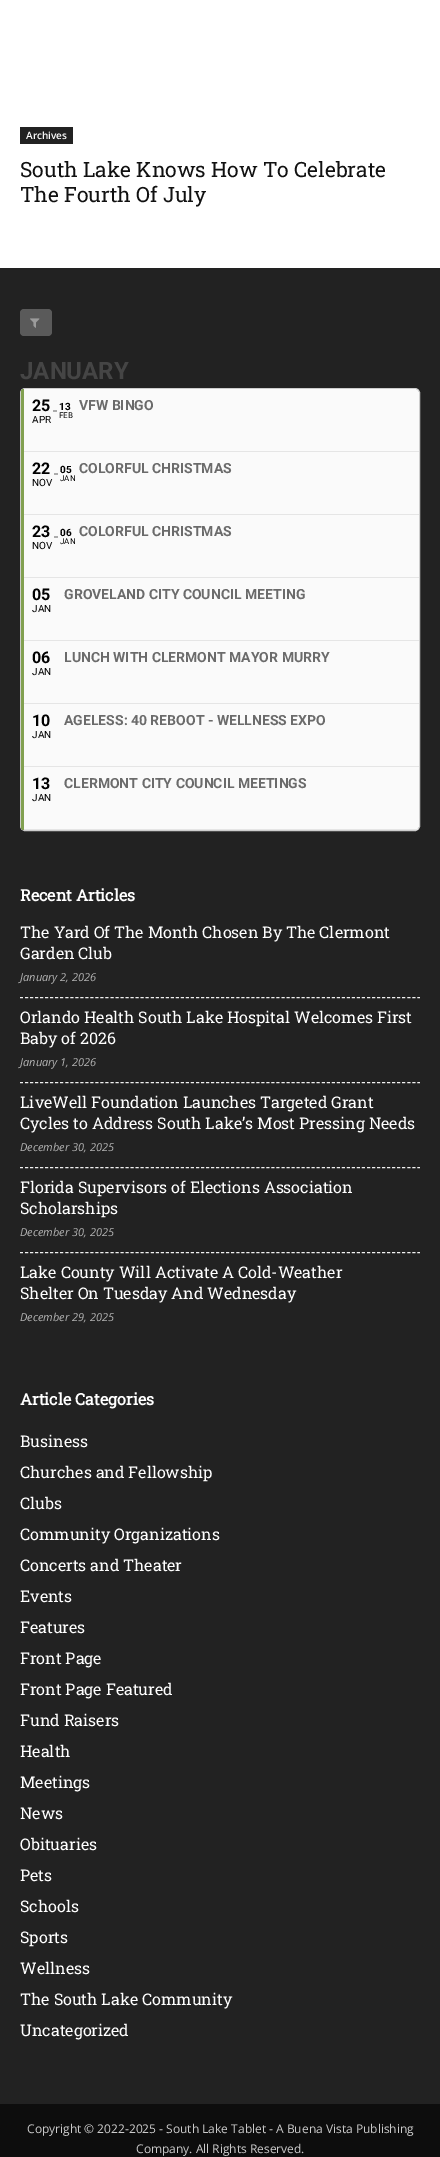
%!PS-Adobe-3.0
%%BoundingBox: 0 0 440 2157
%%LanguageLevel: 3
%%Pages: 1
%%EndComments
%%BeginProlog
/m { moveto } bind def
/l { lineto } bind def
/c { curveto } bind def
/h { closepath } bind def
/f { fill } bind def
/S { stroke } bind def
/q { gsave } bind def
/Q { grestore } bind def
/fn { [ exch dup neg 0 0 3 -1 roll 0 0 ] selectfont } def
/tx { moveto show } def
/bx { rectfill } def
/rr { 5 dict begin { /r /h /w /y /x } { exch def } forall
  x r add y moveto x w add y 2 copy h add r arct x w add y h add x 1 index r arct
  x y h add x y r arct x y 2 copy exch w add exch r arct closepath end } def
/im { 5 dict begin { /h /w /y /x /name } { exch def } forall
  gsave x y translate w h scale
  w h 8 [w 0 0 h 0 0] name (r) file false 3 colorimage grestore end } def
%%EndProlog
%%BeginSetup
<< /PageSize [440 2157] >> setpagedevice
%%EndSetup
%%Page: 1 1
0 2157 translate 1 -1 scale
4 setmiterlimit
1 setgray
0 0 440 2157 bx
0.133 setgray
20 127 53 17 bx
/OpenSans-SemiBold 10 fn
1 setgray
(Archives) 26 139 tx
/RobotoSlab-Regular 21 fn
0.067 setgray
(South Lake Knows How To Celebrate) 20 177 tx
(The Fourth Of July) 20 202 tx
0.133 setgray
0 268 440 1836 bx
0.353 setgray
20 309 32 27 4 rr f
(image0.raw) 30 318 10 10 im
/Roboto-Bold 24 fn
0.271 setgray
(JANUARY) 20 379 tx
0.804 setgray
20.5 388.5 399 442 4.5 rr S
0.98 setgray
25 389 m 415 389 l 417 389 419 391 419 393 c 419 452 l 21 452 l 21 393 l 21 391 23 389 25 389 c h f
q
21 389 398 441 4 rr clip newpath
0.506 0.627 0.314 setrgbcolor
21 389 3 63 bx
Q
/Roboto-Bold 16 fn
0 setgray
(25) 32 411 tx
/Roboto-Regular 10 fn
(APR) 32 423 tx
0.671 setgray
53 410 4 2 bx
/Roboto-Bold 10 fn
0 setgray
(13) 59 410 tx
/Roboto-Regular 8 fn
(FEB) 59 418 tx
/Roboto-Bold 14 fn
0.42 setgray
(VFW BINGO) 79 410 tx
0.898 setgray
24 451 395 1 bx
0.98 setgray
24 452 395 62 bx
0.506 0.627 0.314 setrgbcolor
21 452 3 315 bx
/Roboto-Bold 16 fn
0 setgray
(22) 32 474 tx
/Roboto-Regular 10 fn
(NOV) 32 486 tx
0.671 setgray
54 473 4 2 bx
/Roboto-Bold 10 fn
0 setgray
(05) 60 473 tx
/Roboto-Regular 8 fn
(JAN) 60 481 tx
/Roboto-Bold 14 fn
0.42 setgray
(COLORFUL CHRISTMAS) 79 473 tx
0.898 setgray
24 514 395 1 bx
0.98 setgray
24 515 395 62 bx
/Roboto-Bold 16 fn
0 setgray
(23) 32 537 tx
/Roboto-Regular 10 fn
(NOV) 32 549 tx
0.671 setgray
54 536 4 2 bx
/Roboto-Bold 10 fn
0 setgray
(06) 60 536 tx
/Roboto-Regular 8 fn
(JAN) 60 544 tx
/Roboto-Bold 14 fn
0.42 setgray
(COLORFUL CHRISTMAS) 79 536 tx
0.898 setgray
24 577 395 1 bx
0.98 setgray
24 578 395 62 bx
/Roboto-Bold 16 fn
0 setgray
(05) 32 600 tx
/Roboto-Regular 10 fn
(JAN) 32 612 tx
/Roboto-Bold 14 fn
0.42 setgray
(GROVELAND CITY COUNCIL MEETING) 64 599 tx
0.898 setgray
24 640 395 1 bx
0.98 setgray
24 641 395 62 bx
/Roboto-Bold 16 fn
0 setgray
(06) 32 663 tx
/Roboto-Regular 10 fn
(JAN) 32 675 tx
/Roboto-Bold 14 fn
0.42 setgray
(LUNCH WITH CLERMONT MAYOR MURRY) 64 662 tx
0.898 setgray
24 703 395 1 bx
0.98 setgray
24 704 395 62 bx
/Roboto-Bold 16 fn
0 setgray
(10) 32 726 tx
/Roboto-Regular 10 fn
(JAN) 32 738 tx
/Roboto-Bold 14 fn
0.42 setgray
(AGELESS: 40 REBOOT - WELLNESS EXPO) 64 725 tx
0.898 setgray
24 766 395 1 bx
0.98 setgray
21 767 m 419 767 l 419 826 l 419 828 417 830 415 830 c 25 830 l 23 830 21 828 21 826 c h f
q
21 389 398 441 4 rr clip newpath
0.506 0.627 0.314 setrgbcolor
21 767 3 63 bx
Q
/Roboto-Bold 16 fn
0 setgray
(13) 32 789 tx
/Roboto-Regular 10 fn
(JAN) 32 801 tx
/Roboto-Bold 14 fn
0.42 setgray
(CLERMONT CITY COUNCIL MEETINGS) 64 788 tx
q
21 389 398 441 4 rr clip newpath
0.898 setgray
24 829 395 1 bx
Q
/RobotoSlab-Bold 16 fn
1 setgray
(Recent Articles) 20 901 tx
0.945 setgray
[3 2.03] 0 setdash
20 997.5 m 420 997.5 l S
/RobotoSlab-Regular 16 fn
1 setgray
(The Yard Of The Month Chosen By The Clermont) 20 938 tx
(Garden Club) 20 959 tx
/OpenSans-Italic 11 fn
0.71 setgray
(January 2, 2026) 20 981 tx
0.945 setgray
20 1082.5 m 420 1082.5 l S
/RobotoSlab-Regular 16 fn
1 setgray
(Orlando Health South Lake Hospital Welcomes First) 20 1023 tx
(Baby of 2026) 20 1044 tx
/OpenSans-Italic 11 fn
0.71 setgray
(January 1, 2026) 20 1066 tx
0.945 setgray
20 1167.5 m 420 1167.5 l S
/RobotoSlab-Regular 16 fn
1 setgray
(LiveWell Foundation Launches Targeted Grant) 20 1108 tx
(Cycles to Address South Lake’s Most Pressing Needs) 20 1129 tx
/OpenSans-Italic 11 fn
0.71 setgray
(December 30, 2025) 20 1151 tx
0.945 setgray
20 1252.5 m 420 1252.5 l S
/RobotoSlab-Regular 16 fn
1 setgray
(Florida Supervisors of Elections Association) 20 1193 tx
(Scholarships) 20 1214 tx
/OpenSans-Italic 11 fn
0.71 setgray
(December 30, 2025) 20 1236 tx
/RobotoSlab-Regular 16 fn
1 setgray
(Lake County Will Activate A Cold-Weather) 20 1278 tx
(Shelter On Tuesday And Wednesday) 20 1299 tx
/OpenSans-Italic 11 fn
0.71 setgray
(December 29, 2025) 20 1321 tx
/RobotoSlab-Bold 16 fn
1 setgray
(Article Categories) 20 1405 tx
/RobotoSlab-Regular 16 fn
(Business) 20 1447 tx
(Churches and Fellowship) 20 1478 tx
(Clubs) 20 1509 tx
(Community Organizations) 20 1540 tx
(Concerts and Theater) 20 1571 tx
(Events) 20 1602 tx
(Features) 20 1633 tx
(Front Page) 20 1664 tx
(Front Page Featured) 20 1695 tx
(Fund Raisers) 20 1726 tx
(Health) 20 1757 tx
(Meetings) 20 1788 tx
(News) 20 1819 tx
(Obituaries) 20 1850 tx
(Pets) 20 1881 tx
(Schools) 20 1912 tx
(Sports) 20 1943 tx
(Wellness) 20 1974 tx
(The South Lake Community) 20 2005 tx
(Uncategorized) 20 2036 tx
0.051 setgray
0 2104 440 53 bx
/OpenSans-Regular 12 fn
0.8 setgray
(Copyright © 2022-2025 - South Lake Tablet - A Buena Vista Publishing) 27 2133 tx
(Company. All Rights Reserved.) 136 2153 tx
showpage
%%EOF
